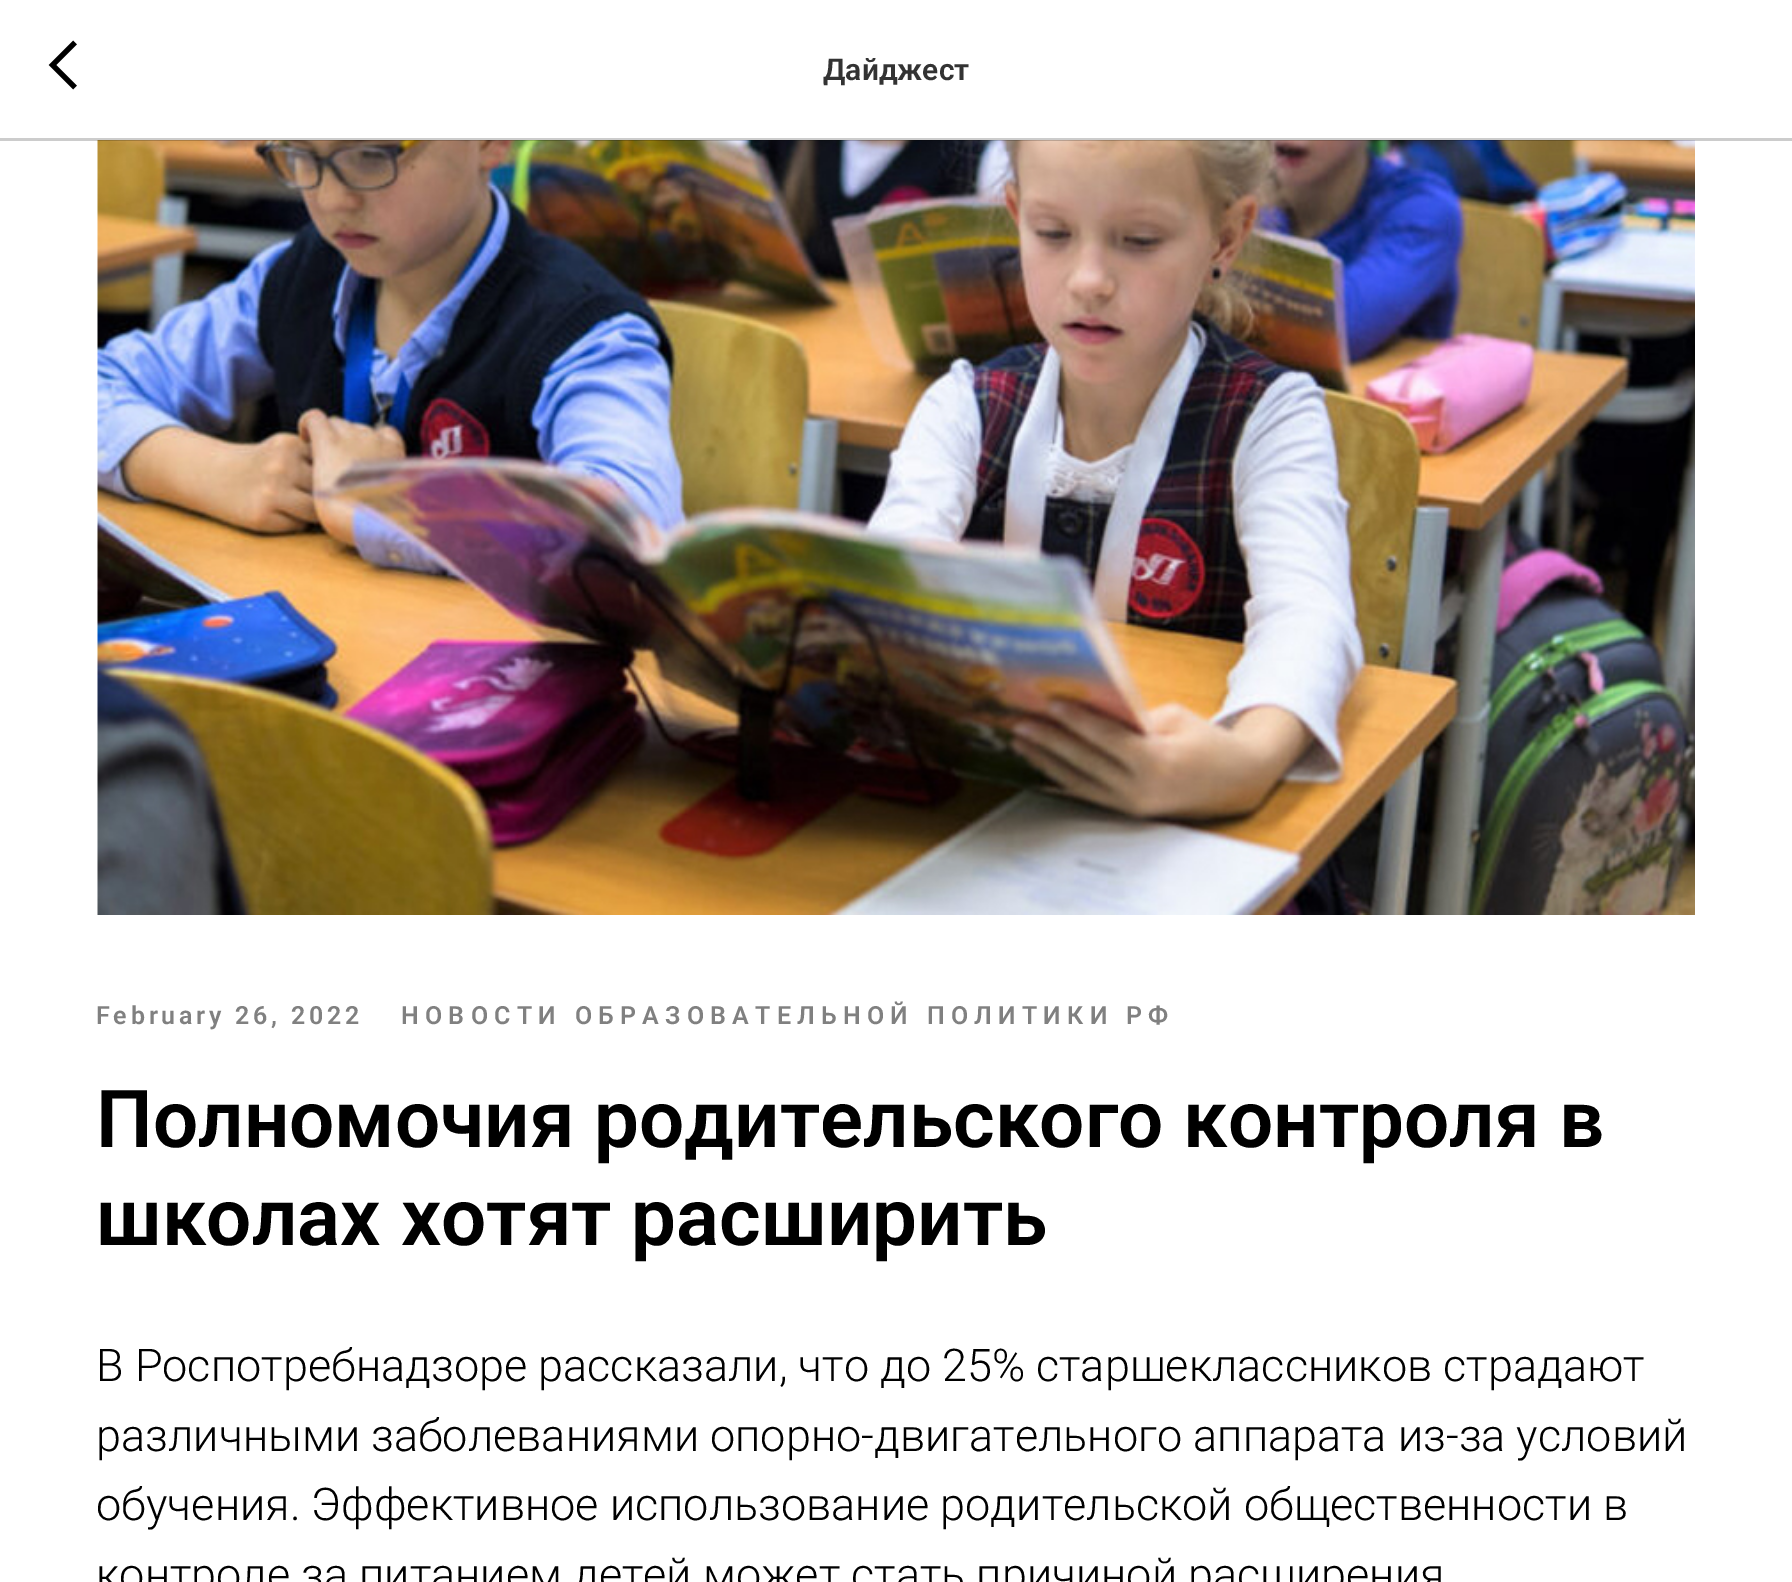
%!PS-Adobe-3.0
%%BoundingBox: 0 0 1792 1582
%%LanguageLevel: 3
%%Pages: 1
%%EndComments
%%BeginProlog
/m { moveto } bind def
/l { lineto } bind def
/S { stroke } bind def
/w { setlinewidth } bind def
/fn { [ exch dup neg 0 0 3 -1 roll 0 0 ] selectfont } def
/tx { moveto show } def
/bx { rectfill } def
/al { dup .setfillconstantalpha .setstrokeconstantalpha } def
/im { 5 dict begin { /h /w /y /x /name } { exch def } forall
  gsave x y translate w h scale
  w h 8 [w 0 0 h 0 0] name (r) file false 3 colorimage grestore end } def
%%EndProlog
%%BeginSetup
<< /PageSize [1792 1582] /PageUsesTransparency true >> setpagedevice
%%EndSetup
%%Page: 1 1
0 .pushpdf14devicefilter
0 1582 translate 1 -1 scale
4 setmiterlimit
1 setgray
0 0 1792 1582 bx
(image0.raw) 97 140 1598 775 im
0.2 al
0 setgray
0 138 1792 3 bx
1 al
5 w
75 87.5 m 52.5 65 l 75 42.5 l S
/Roboto-SemiBold 30 fn
0.2 setgray
(Дайджест) 823 80 tx
/Roboto-SemiBold 25 fn
0.502 setgray
96 1024 m 3.75 0 (February 26, 2022) ashow
401 1024 m 6.25 0 (НОВОСТИ ОБРАЗОВАТЕЛЬНОЙ ПОЛИТИКИ РФ) ashow
/Roboto-SemiBold 80 fn
0 setgray
(Полномочия родительского контроля в) 96 1147 tx
(школах хотят расширить) 96 1245 tx
/Roboto-Light 45 fn
(В Роспотребнадзоре рассказали, что до 25% старшеклассников страдают) 96 1381 tx
(различными заболеваниями опорно-двигательного аппарата из-за условий) 96 1451 tx
(обучения. Эффективное использование родительской общественности в) 96 1520 tx
(контроле за питанием детей может стать причиной расширения) 96 1590 tx
.poppdf14devicefilter showpage
%%EOF
